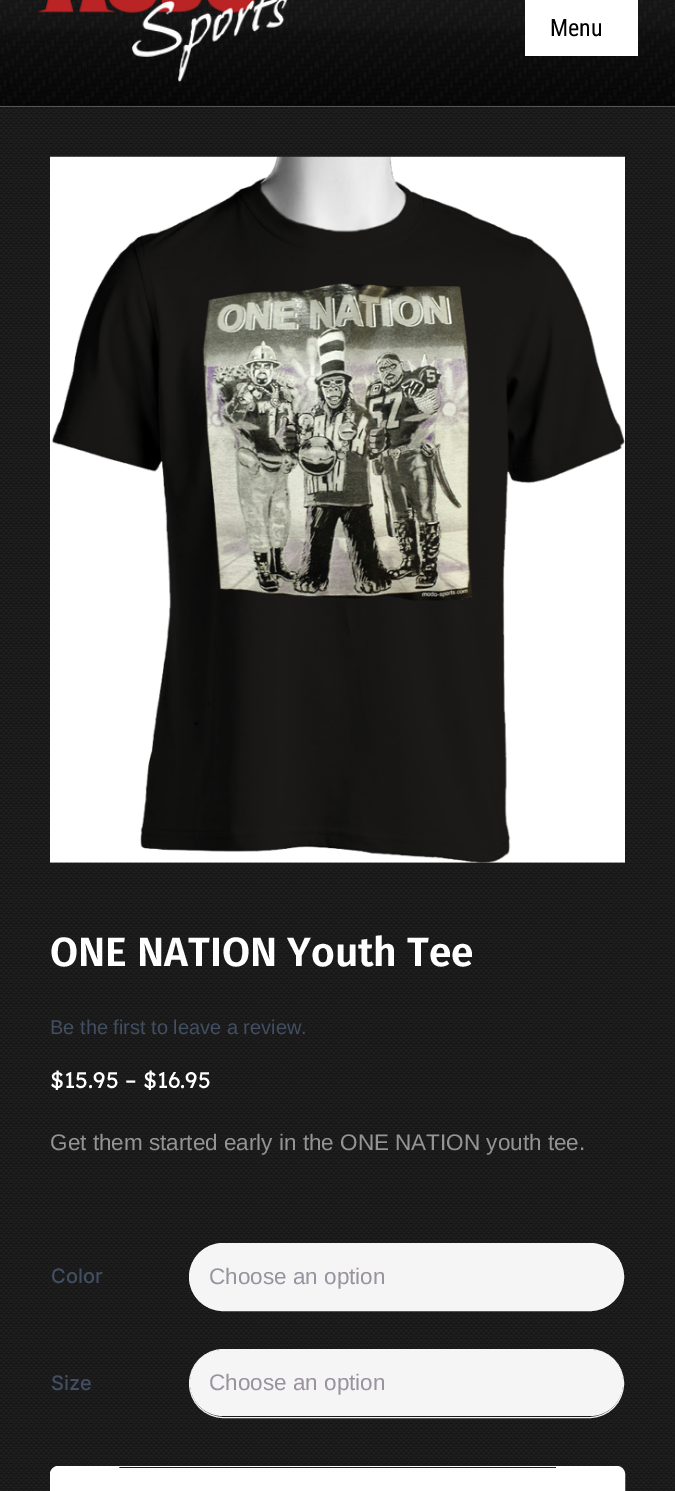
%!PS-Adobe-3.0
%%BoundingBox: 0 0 675 1491
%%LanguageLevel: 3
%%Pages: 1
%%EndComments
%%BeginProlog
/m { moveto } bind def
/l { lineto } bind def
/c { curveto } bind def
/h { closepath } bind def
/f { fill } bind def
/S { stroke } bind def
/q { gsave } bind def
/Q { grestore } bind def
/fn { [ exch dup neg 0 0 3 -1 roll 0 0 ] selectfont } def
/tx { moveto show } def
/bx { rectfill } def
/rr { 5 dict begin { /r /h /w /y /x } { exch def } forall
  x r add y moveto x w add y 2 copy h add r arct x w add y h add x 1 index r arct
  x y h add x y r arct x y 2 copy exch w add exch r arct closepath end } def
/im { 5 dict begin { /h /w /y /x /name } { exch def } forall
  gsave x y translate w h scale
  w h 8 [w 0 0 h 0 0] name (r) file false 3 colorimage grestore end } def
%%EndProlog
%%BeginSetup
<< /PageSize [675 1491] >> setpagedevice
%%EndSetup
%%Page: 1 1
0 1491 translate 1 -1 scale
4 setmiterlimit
1 setgray
0 0 675 1491 bx
(image2.raw) 0 106 675 1385 im
(image0.raw) 0 0 675 107 im
(image1.raw) 38 0 250 82 im
525 0 113 56 bx
/RobotoCondensed-Regular 24 fn
0 setgray
(Menu) 550 36 tx
(image3.raw) 50 156 575 707 im
/FiraSans-SemiBold 40.75 fn
1 setgray
(ONE NATION Youth Tee) 50 966 tx
/LiberationSans-Regular 20 fn
0.259 0.31 0.384 setrgbcolor
(Be the first to leave a review.) 50 1034 tx
/Lexend-Regular 22.5 fn
1 setgray
($15.95 – $16.95) 50 1088 tx
/LiberationSans-Regular 22.5 fn
0.58 setgray
(Get them started early in the ONE NATION youth tee.) 50 1150 tx
/Inter-Medium 20 fn
0.259 0.31 0.384 setrgbcolor
(Color) 51 1283 tx
0.961 setgray
189.5 1243.5 434 67 33.5 rr q f Q
S
/LiberationSans-Regular 22.5 fn
0.596 0.576 0.624 setrgbcolor
(Choose an option) 209 1284 tx
/Inter-Medium 20 fn
0.259 0.31 0.384 setrgbcolor
(Size) 51 1390 tx
0.961 setgray
190 1350 433 66 33 rr f
189.5 1349.5 434 68 34 rr S
/LiberationSans-Regular 22.5 fn
0.596 0.576 0.624 setrgbcolor
(Choose an option) 209 1390 tx
1 setgray
58 1466.5 m 118.5 1466.5 l 118.5 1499.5 l 58 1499.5 l 54 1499.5 50.5 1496 50.5 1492 c 50.5 1474 l 50.5 1470 54 1466.5 58 1466.5 c h q f Q
S
119 1468 437 23 bx
119 1466 437 1 bx
556.5 1466.5 m 617 1466.5 l 621 1466.5 624.5 1470 624.5 1474 c 624.5 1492 l 624.5 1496 621 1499.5 617 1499.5 c 556.5 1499.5 l h q f Q
S
showpage
%%EOF
